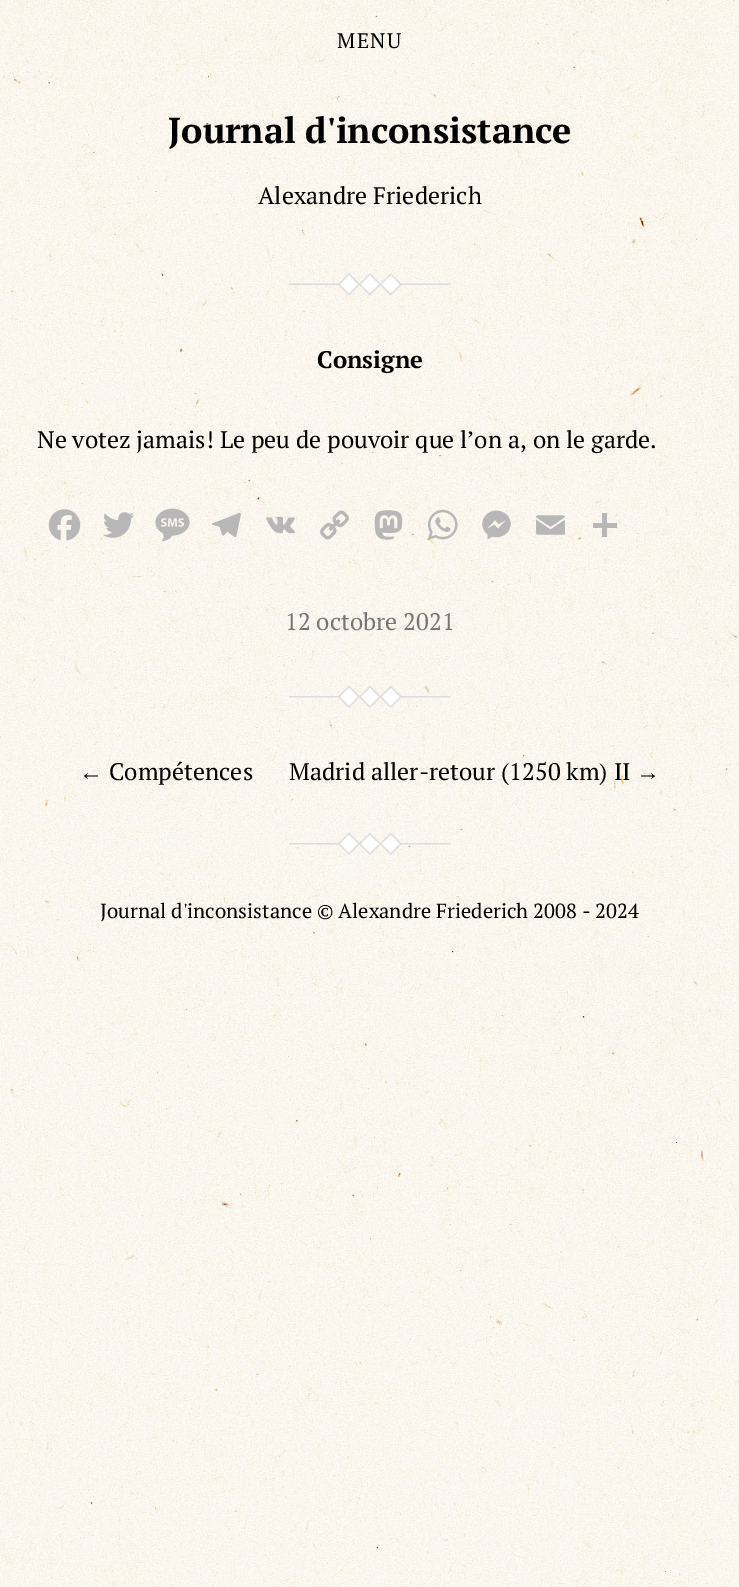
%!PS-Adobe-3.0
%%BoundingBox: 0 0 739 1587
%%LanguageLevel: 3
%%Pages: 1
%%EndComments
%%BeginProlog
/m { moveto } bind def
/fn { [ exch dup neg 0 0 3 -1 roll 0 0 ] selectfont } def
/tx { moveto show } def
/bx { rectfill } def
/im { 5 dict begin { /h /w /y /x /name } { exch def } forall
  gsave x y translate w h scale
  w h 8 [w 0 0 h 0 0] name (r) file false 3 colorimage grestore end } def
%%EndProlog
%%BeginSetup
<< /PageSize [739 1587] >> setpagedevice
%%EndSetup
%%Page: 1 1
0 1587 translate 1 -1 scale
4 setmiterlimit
1 setgray
0 0 739 1587 bx
(image0.raw) 0 0 739 1587 im
/PTSerif-Regular 21 fn
0 setgray
337 48 m 1.5 0 (MENU) ashow
/PTSerif-Bold 36 fn
(Journal d'inconsistance) 168 143 tx
/PTSerif-Regular 24 fn
(Alexandre Friederich) 258 204 tx
(image1.raw) 289 273 162 23 im
/PTSerif-Bold 24 fn
(Consigne) 317 368 tx
/PTSerif-Regular 24 fn
(Ne votez jamais! Le peu de pouvoir que l’on a, on le garde.) 37 448 tx
(image2.raw) 48 509 33 32 im
(image3.raw) 103 512 31 26 im
(image4.raw) 155 508 35 34 im
(image5.raw) 212 513 29 24 im
(image6.raw) 266 516 29 18 im
(image7.raw) 320 510 29 30 im
(image8.raw) 374 510 29 30 im
(image9.raw) 427 509 31 32 im
(image10.raw) 482 510 29 30 im
(image11.raw) 536 515 29 20 im
0.718 setgray
602 513 5 24 bx
593 523 24 5 bx
0.463 setgray
(12 octobre 2021) 285 630 tx
(image12.raw) 289 685 162 23 im
/LiberationSerif-Regular 24 fn
0 setgray
(←) 79 780 tx
/PTSerif-Regular 24 fn
(Compétences) 109 780 tx
(Madrid aller-retour \(1250 km\) II) 289 780 tx
/LiberationSerif-Regular 24 fn
(→) 636 780 tx
(image13.raw) 289 832 162 23 im
/PTSerif-Regular 20.4 fn
(Journal d'inconsistance © Alexandre Friederich 2008 - 2024) 100 918 tx
showpage
%%EOF
